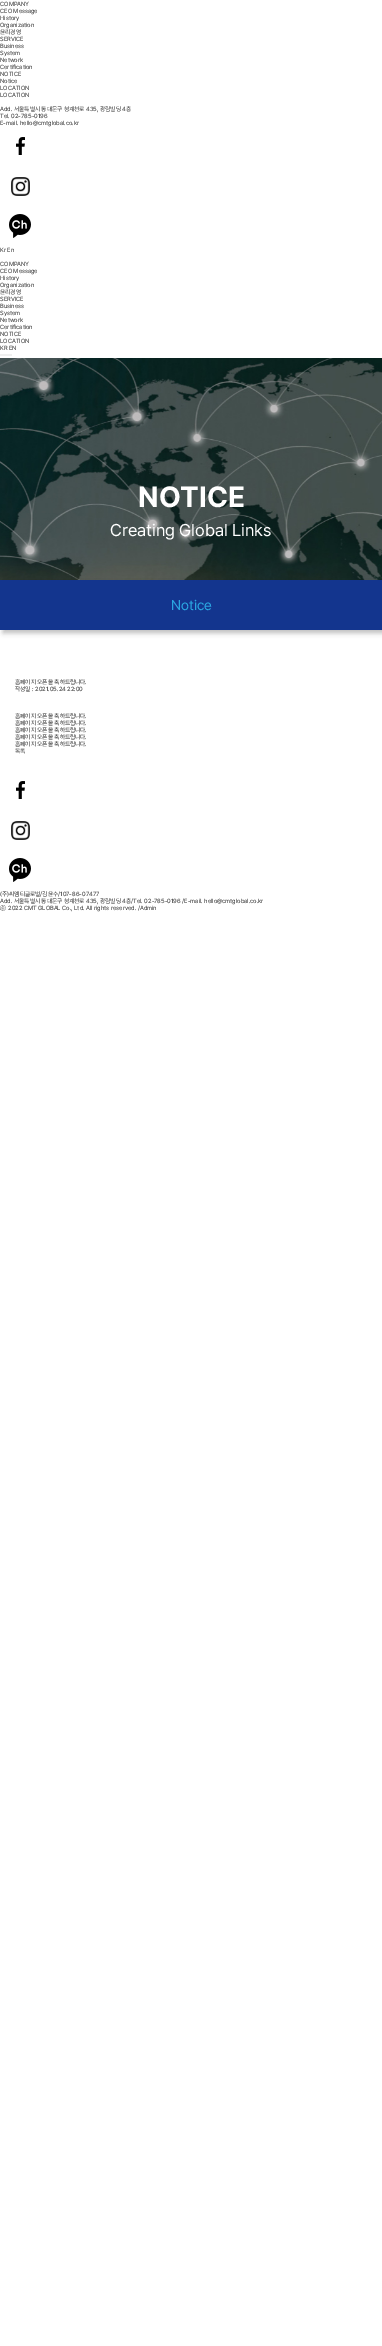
%!PS-Adobe-3.0
%%BoundingBox: 0 0 382 2346
%%LanguageLevel: 3
%%Pages: 1
%%EndComments
%%BeginProlog
/fn { [ exch dup neg 0 0 3 -1 roll 0 0 ] selectfont } def
/tx { moveto show } def
/bx { rectfill } def
/al { dup .setfillconstantalpha .setstrokeconstantalpha } def
/rr { 5 dict begin { /r /h /w /y /x } { exch def } forall
  x r add y moveto x w add y 2 copy h add r arct x w add y h add x 1 index r arct
  x y h add x y r arct x y 2 copy exch w add exch r arct closepath end } def
/sh { 12 dict begin { /a /b /q /h /w /y /x } { exch def } forall gsave /was 0 def
  9 -2 -9 { dup b mul 4 div /e exch def 1 sub .425 mul 2.718 exch exp 1 add a .99 .min exch div /now exch def
    1 1 now sub 1 was sub div sub al /was now def
    w h .min e 2 mul add 0 gt { x e sub y e sub w e 2 mul add h e 2 mul add
      q e add b .6 mul add w h .min 2 div e add .min 0 .max rr fill } if } for grestore end } def
/im { 5 dict begin { /h /w /y /x /name } { exch def } forall
  gsave x y translate w h scale
  w h 8 [w 0 0 h 0 0] name (r) file false 3 colorimage grestore end } def
%%EndProlog
%%BeginSetup
<< /PageSize [382 2346] /PageUsesTransparency true >> setpagedevice
%%EndSetup
%%Page: 1 1
0 .pushpdf14devicefilter
0 2346 translate 1 -1 scale
4 setmiterlimit
1 setgray
0 0 382 2346 bx
/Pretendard-Regular 6 fn
0.2 setgray
(COMPANY) 0 6 tx
(CEO Message) 0 13 tx
(History) 0 20 tx
(Organization) 0 27 tx
(윤리경영) 0 34 tx
(SERVICE) 0 41 tx
(Business) 0 48 tx
(System) 0 55 tx
(Network) 0 62 tx
(Certification) 0 69 tx
(NOTICE) 0 76 tx
(Notice) 0 83 tx
(LOCATION) 0 90 tx
(LOCATION) 0 97 tx
(Add. 서울특별시 동대문구 청계천로 435, 광림빌딩 4층) 0 111 tx
(Tel. 02-785-0196) 0 118 tx
(E-mail. hello@cmtglobal.co.kr) 0 125 tx
(image0.raw) 16 137 9 18 im
(image1.raw) 11 177 19 19 im
(image2.raw) 9 214 22 24 im
(Kr En) 0 252 tx
(COMPANY) 0 266 tx
(CEO Message) 0 273 tx
(History) 0 280 tx
(Organization) 0 287 tx
(윤리경영) 0 294 tx
(SERVICE) 0 301 tx
(Business) 0 308 tx
(System) 0 315 tx
(Network) 0 322 tx
(Certification) 0 329 tx
(NOTICE) 0 336 tx
(LOCATION) 0 343 tx
(KR EN) 0 350 tx
0.937 setgray
0 354 12 2 bx
(image3.raw) 0 358 382 222 im
/Pretendard-Bold 29 fn
1 setgray
(NOTICE) 138 507 tx
/Pretendard-Regular 17 fn
(Creating Global Links) 110 536 tx
0 setgray
3 583 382 50 0 2.5 0.25 sh
0.075 0.208 0.557 setrgbcolor
0 580 382 50 bx
/Pretendard-Regular 14 fn
0.165 0.651 0.882 setrgbcolor
(Notice) 171 610 tx
/Pretendard-Regular 6 fn
0.2 setgray
(홈페이지 오픈을 축하드립니다.) 15 684 tx
(작성일 : 2021.05.24 22:00) 15 691 tx
(홈페이지 오픈을 축하드립니다.) 15 718 tx
(홈페이지 오픈을 축하드립니다.) 15 725 tx
(홈페이지 오픈을 축하드립니다.) 15 732 tx
(홈페이지 오픈을 축하드립니다.) 15 739 tx
(홈페이지 오픈을 축하드립니다.) 15 746 tx
(목록) 15 753 tx
(image0.raw) 16 781 9 18 im
(image1.raw) 11 821 19 19 im
(image2.raw) 9 858 22 24 im
(\(주\)씨엠티글로벌/김윤수/107-86-07477) 0 896 tx
(Add. 서울특별시 동대문구 청계천로 435, 광림빌딩 4층/Tel. 02-785-0196 /E-mail. hello@cmtglobal.co.kr) 0 903 tx
/WenQuanYiZenHei-Medium 6 fn
(ⓒ) 0 910 tx
/Pretendard-Regular 6 fn
(2022 CMT GLOBAL Co., Ltd. All rights reserved. /Admin) 8 910 tx
.poppdf14devicefilter showpage
%%EOF
